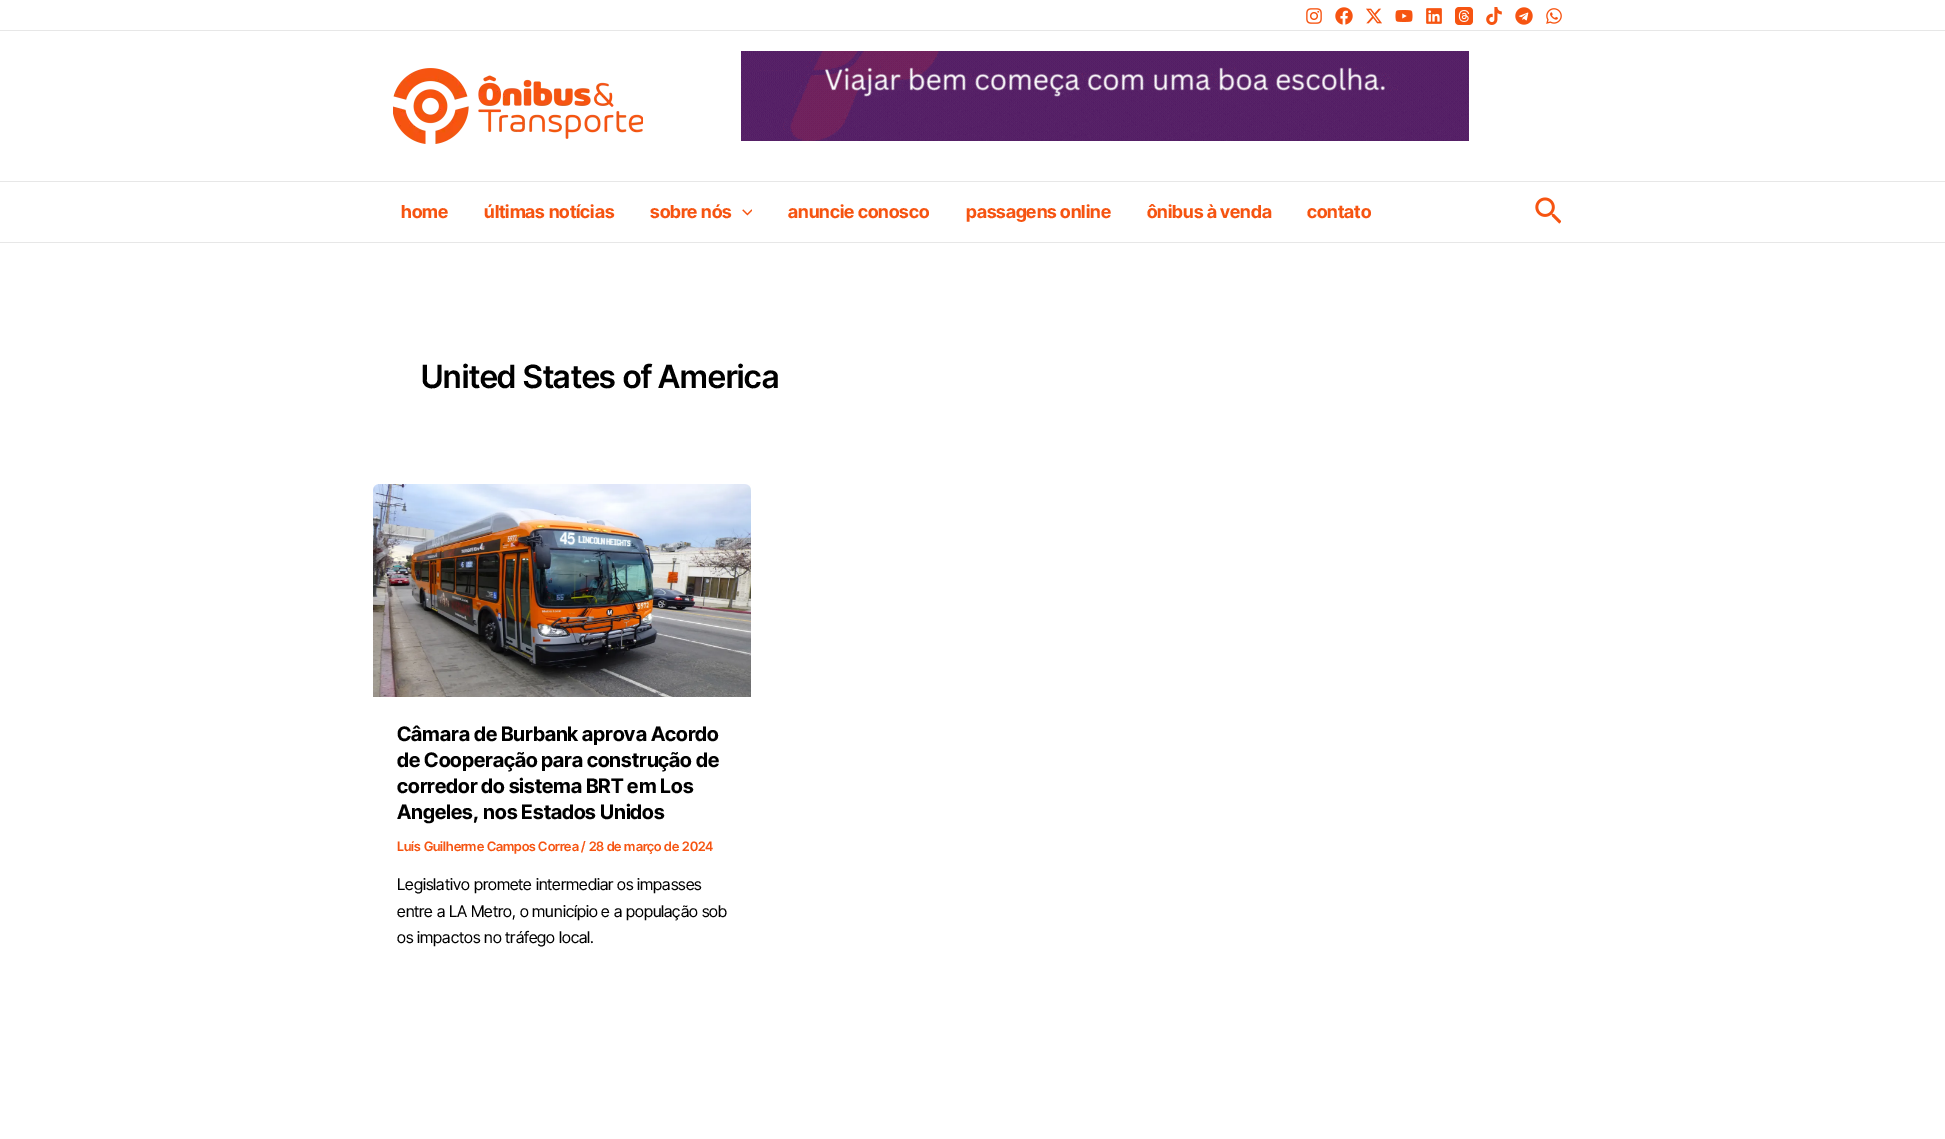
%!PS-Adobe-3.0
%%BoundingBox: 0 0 1945 1139
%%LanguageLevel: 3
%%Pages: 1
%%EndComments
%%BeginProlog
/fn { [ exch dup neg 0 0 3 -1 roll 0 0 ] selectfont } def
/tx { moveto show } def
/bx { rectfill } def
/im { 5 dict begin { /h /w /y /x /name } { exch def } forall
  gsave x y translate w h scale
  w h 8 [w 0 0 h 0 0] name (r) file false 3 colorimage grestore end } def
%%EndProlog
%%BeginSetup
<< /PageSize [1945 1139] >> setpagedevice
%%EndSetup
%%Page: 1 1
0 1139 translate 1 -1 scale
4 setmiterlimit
1 setgray
0 0 1945 1139 bx
0.906 setgray
0 30 1945 1 bx
(image0.raw) 1306 8 16 16 im
(image1.raw) 1335 7 18 18 im
(image2.raw) 1366 8 16 16 im
(image3.raw) 1395 10 18 12 im
(image4.raw) 1426 8 16 16 im
(image5.raw) 1455 7 18 18 im
(image6.raw) 1486 7 16 18 im
(image7.raw) 1515 7 18 18 im
(image8.raw) 1546 8 16 16 im
0 181 1945 1 bx
(image9.raw) 393 68 250 76 im
(image10.raw) 741 51 728 90 im
0 242 1945 1 bx
/InterTight-Bold 18 fn
0.965 0.329 0.067 setrgbcolor
(home) 401 218 tx
(últimas notícias) 484 218 tx
(sobre nós) 650 218 tx
(image11.raw) 742 209 10 7 im
(anuncie conosco) 788 218 tx
(passagens online) 966 218 tx
(ônibus à venda) 1147 218 tx
(contato) 1307 218 tx
(image12.raw) 1535 197 26 27 im
/InterTight-SemiBold 32 fn
0 setgray
(United States of America) 421 388 tx
(image13.raw) 373 484 378 213 im
/InterTight-Bold 20 fn
(Câmara de Burbank aprova Acordo) 397 741 tx
(de Cooperação para construção de) 397 767 tx
(corredor do sistema BRT em Los) 397 793 tx
(Angeles, nos Estados Unidos) 397 819 tx
/InterTight-SemiBold 13 fn
0.965 0.329 0.067 setrgbcolor
(Luís Guilherme Campos Correa / 28 de março de 2024) 397 851 tx
/InterTight-Regular 16 fn
0 setgray
(Legislativo promete intermediar os impasses) 397 890 tx
(entre a LA Metro, o município e a população sob) 397 917 tx
(os impactos no tráfego local.) 397 943 tx
showpage
%%EOF
